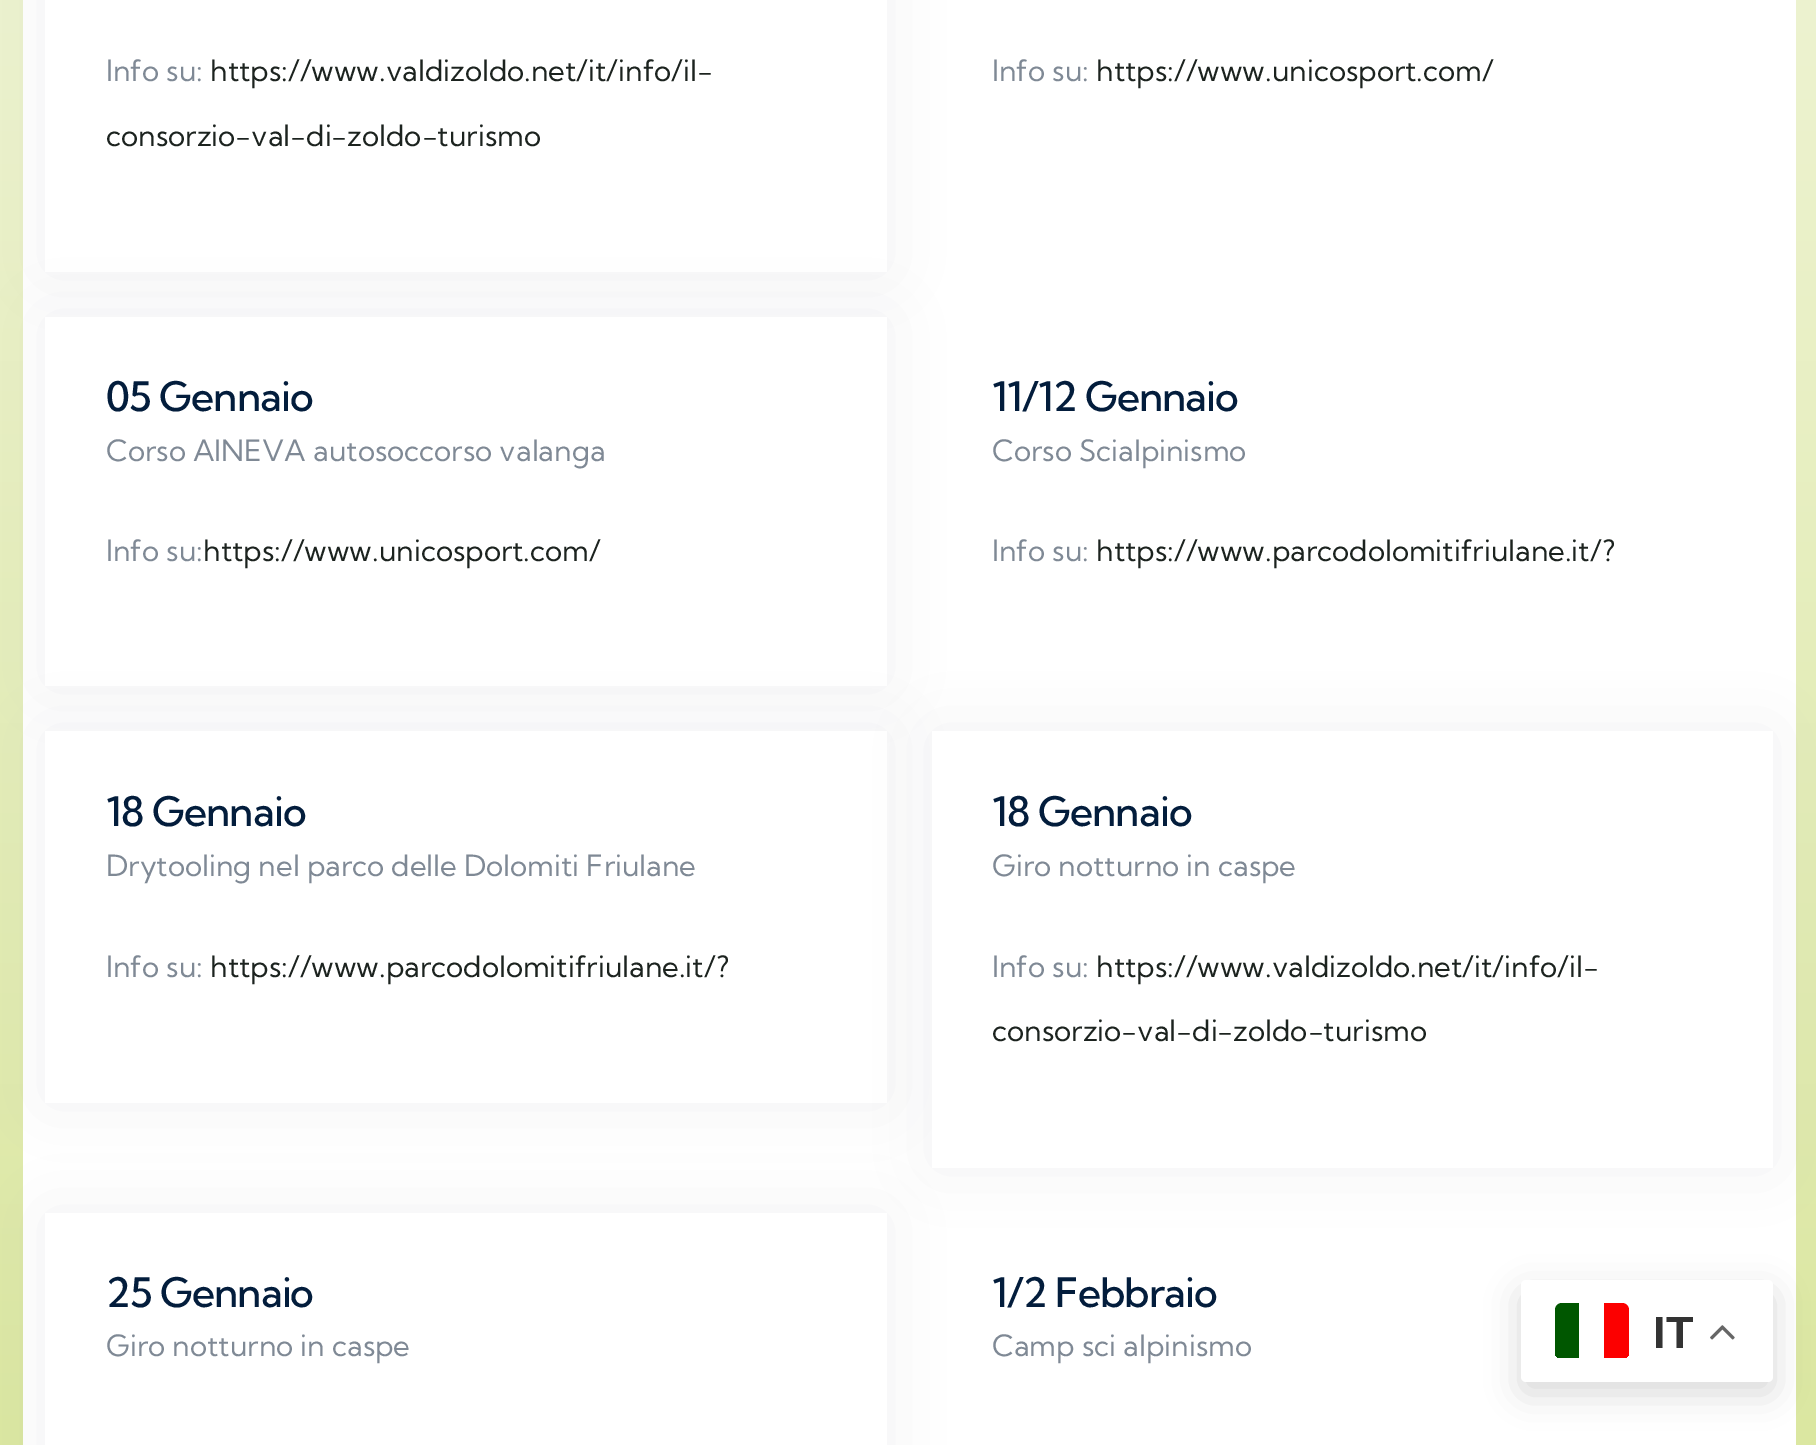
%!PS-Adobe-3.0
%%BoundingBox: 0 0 1816 1445
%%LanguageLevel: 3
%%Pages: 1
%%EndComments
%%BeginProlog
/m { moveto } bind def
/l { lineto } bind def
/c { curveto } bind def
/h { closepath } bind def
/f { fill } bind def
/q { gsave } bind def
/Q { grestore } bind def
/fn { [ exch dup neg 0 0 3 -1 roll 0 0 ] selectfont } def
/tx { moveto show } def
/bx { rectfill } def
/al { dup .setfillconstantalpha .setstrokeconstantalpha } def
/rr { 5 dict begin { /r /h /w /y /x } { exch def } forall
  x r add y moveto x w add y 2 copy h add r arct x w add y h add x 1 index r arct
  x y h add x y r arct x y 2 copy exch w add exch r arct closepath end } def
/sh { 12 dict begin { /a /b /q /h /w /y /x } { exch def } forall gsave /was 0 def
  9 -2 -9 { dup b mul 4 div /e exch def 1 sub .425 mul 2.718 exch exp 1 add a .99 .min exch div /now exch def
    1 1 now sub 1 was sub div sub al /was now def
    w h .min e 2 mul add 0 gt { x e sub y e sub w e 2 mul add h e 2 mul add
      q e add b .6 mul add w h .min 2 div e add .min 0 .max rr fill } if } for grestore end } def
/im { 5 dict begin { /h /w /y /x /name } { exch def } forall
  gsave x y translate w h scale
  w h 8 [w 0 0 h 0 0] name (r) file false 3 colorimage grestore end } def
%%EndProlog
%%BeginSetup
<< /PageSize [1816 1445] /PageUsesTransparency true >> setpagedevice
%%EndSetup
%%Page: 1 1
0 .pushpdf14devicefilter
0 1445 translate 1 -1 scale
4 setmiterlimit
1 setgray
0 0 1816 1445 bx
q 0 0 m 1816 0 l 1816 1445 l 0 1445 l h clip newpath
<< /ShadingType 2 /ColorSpace /DeviceRGB /Coords [909 -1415 909 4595] /Extend [true true] /Function << /FunctionType 2 /Domain [0 1] /C0 [1 1 1] /C1 [0.706 0.804 0.224] /N 1 >> >> shfill Q
23 0 1773 1445 bx
0.012 0.114 0.235 setrgbcolor
45 -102 842 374 0 34 0.05 sh
1 setgray
45 0 842 272 bx
/KumbhSans-Regular 29.25 fn
0.498 0.537 0.584 setrgbcolor
(Info su:) 106 81 tx
0.11 0.137 0.122 setrgbcolor
(https://www.valdizoldo.net/it/info/il-) 210 81 tx
(consorzio-val-di-zoldo-turismo) 106 146 tx
0.498 0.537 0.584 setrgbcolor
(Info su:) 992 81 tx
0.11 0.137 0.122 setrgbcolor
(https://www.unicosport.com/) 1096 81 tx
0.012 0.114 0.235 setrgbcolor
45 317 842 369 0 34 0.05 sh
1 setgray
45 317 842 369 bx
/KumbhSans-Medium 40.5 fn
0.012 0.114 0.235 setrgbcolor
106 411 m -0.9 0 (05 Gennaio) ashow
/KumbhSans-Regular 29.25 fn
0.498 0.537 0.584 setrgbcolor
(Corso AINEVA autosoccorso valanga) 106 461 tx
(Info su:) 106 561 tx
0.11 0.137 0.122 setrgbcolor
(https://www.unicosport.com/) 203 561 tx
/KumbhSans-Medium 40.5 fn
0.012 0.114 0.235 setrgbcolor
992 411 m -0.9 0 (11/12 Gennaio) ashow
/KumbhSans-Regular 29.25 fn
0.498 0.537 0.584 setrgbcolor
(Corso Scialpinismo) 992 461 tx
(Info su:) 992 561 tx
0.11 0.137 0.122 setrgbcolor
(https://www.parcodolomitifriulane.it/?) 1096 561 tx
0.012 0.114 0.235 setrgbcolor
45 731 842 372 0 34 0.05 sh
1 setgray
45 731 842 372 bx
/KumbhSans-Medium 40.5 fn
0.012 0.114 0.235 setrgbcolor
106 826 m -0.9 0 (18 Gennaio) ashow
/KumbhSans-Regular 29.25 fn
0.498 0.537 0.584 setrgbcolor
(Drytooling nel parco delle Dolomiti Friulane) 106 876 tx
(Info su:) 106 977 tx
0.11 0.137 0.122 setrgbcolor
(https://www.parcodolomitifriulane.it/?) 210 977 tx
0.012 0.114 0.235 setrgbcolor
932 731 841 437 0 34 0.05 sh
1 setgray
932 731 841 437 bx
/KumbhSans-Medium 40.5 fn
0.012 0.114 0.235 setrgbcolor
992 826 m -0.9 0 (18 Gennaio) ashow
/KumbhSans-Regular 29.25 fn
0.498 0.537 0.584 setrgbcolor
(Giro notturno in caspe) 992 876 tx
(Info su:) 992 977 tx
0.11 0.137 0.122 setrgbcolor
(https://www.valdizoldo.net/it/info/il-) 1096 977 tx
(consorzio-val-di-zoldo-turismo) 992 1041 tx
0.012 0.114 0.235 setrgbcolor
45 1213 842 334 0 34 0.05 sh
1 setgray
45 1213 842 232 bx
/KumbhSans-Medium 40.5 fn
0.012 0.114 0.235 setrgbcolor
106 1307 m -0.9 0 (25 Gennaio) ashow
/KumbhSans-Regular 29.25 fn
0.498 0.537 0.584 setrgbcolor
(Giro notturno in caspe) 106 1356 tx
/KumbhSans-Medium 40.5 fn
0.012 0.114 0.235 setrgbcolor
992 1307 m -0.9 0 (1/2 Febbraio) ashow
/KumbhSans-Regular 29.25 fn
0.498 0.537 0.584 setrgbcolor
(Camp sci alpinismo) 992 1356 tx
0 setgray
1521 1292 252 101 5 17 0.15 sh
1 setgray
1521 1280 252 102 5 rr f
q
1555 1303 74 56 7 rr clip newpath
0 0.341 0 setrgbcolor
1562 1303 m 1579 1303 l 1579 1358 l 1555 1358 l 1555 1310 l 1555 1306 1558 1303 1562 1303 c h f
0.988 0 0 setrgbcolor
1604 1303 m 1622 1303 l 1626 1303 1629 1306 1629 1310 c 1629 1358 l 1604 1358 l h f
Q
/LiberationSans-Bold 45 fn
0.2 setgray
(IT) 1653 1348 tx
(image0.raw) 1710 1325 25 15 im
.poppdf14devicefilter showpage
%%EOF
